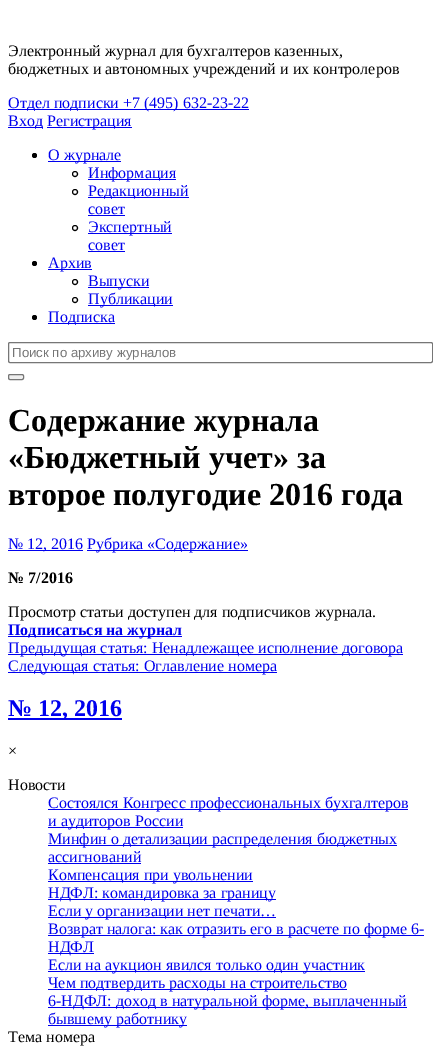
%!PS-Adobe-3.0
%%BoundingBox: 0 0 433 1048
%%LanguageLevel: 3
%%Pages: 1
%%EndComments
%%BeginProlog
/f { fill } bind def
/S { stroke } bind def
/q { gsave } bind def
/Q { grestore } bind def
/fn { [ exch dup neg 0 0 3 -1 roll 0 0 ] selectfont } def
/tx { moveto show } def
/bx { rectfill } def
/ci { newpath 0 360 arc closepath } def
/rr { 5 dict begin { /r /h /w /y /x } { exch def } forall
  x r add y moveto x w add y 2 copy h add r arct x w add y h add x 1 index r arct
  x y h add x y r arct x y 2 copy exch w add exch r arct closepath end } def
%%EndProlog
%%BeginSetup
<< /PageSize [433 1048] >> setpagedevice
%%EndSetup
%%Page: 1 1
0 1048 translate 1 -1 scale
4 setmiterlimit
1 setgray
0 0 433 1048 bx
/LiberationSerif-Regular 16 fn
0 setgray
(Электронный журнал для бухгалтеров казенных,) 8 56 tx
(бюджетных и автономных учреждений и их контролеров) 8 74 tx
0 0 0.933 setrgbcolor
8 109 241 1 bx
(Отдел подписки +7 \(495\) 632-23-22) 8 108 tx
8 127 35 1 bx
(Вход) 8 126 tx
47 127 85 1 bx
(Регистрация) 47 126 tx
0 setgray
34.5 155.5 2.5 ci f
0 0 0.933 setrgbcolor
48 161 73 1 bx
(О журнале) 48 160 tx
0 setgray
75 174 2.5 ci S
0 0 0.933 setrgbcolor
88 179 88 1 bx
(Информация) 88 178 tx
0 setgray
75 192 2.5 ci S
0 0 0.933 setrgbcolor
88 197 101 1 bx
(Редакционный) 88 196 tx
(совет) 88 214 tx
88 215 37 1 bx
0 setgray
75 228 2.5 ci S
0 0 0.933 setrgbcolor
88 233 84 1 bx
(Экспертный) 88 232 tx
(совет) 88 250 tx
88 251 37 1 bx
0 setgray
34.5 263.5 2.5 ci f
0 0 0.933 setrgbcolor
48 269 44 1 bx
(Архив) 48 268 tx
0 setgray
75 282 2.5 ci S
0 0 0.933 setrgbcolor
88 287 61 1 bx
(Выпуски) 88 286 tx
0 setgray
75 300 2.5 ci S
0 0 0.933 setrgbcolor
88 305 85 1 bx
(Публикации) 88 304 tx
0 setgray
34.5 317.5 2.5 ci f
0 0 0.933 setrgbcolor
48 323 67 1 bx
(Подписка) 48 322 tx
0.463 setgray
8.5 342.5 424 20 1.5 rr S
/LiberationSans-Regular 13.25 fn
0.459 setgray
(Поиск по архиву журналов) 12 357 tx
0.937 setgray
8.5 374.5 15 5 1.5 rr q f Q
0.463 setgray
S
/LiberationSerif-Bold 32 fn
0 setgray
(Содержание журнала) 8 431 tx
(«Бюджетный учет» за) 8 468 tx
(второе полугодие 2016 года) 8 505 tx
0 0 0.933 setrgbcolor
8 550 75 1 bx
/LiberationSerif-Regular 16 fn
(№ 12, 2016) 8 549 tx
87 550 161 1 bx
(Рубрика «Содержание») 87 549 tx
/LiberationSerif-Bold 16 fn
0 setgray
(№ 7/2016) 8 583 tx
/LiberationSerif-Regular 16 fn
(Просмотр статьи доступен для подписчиков журнала.) 8 617 tx
0 0 0.933 setrgbcolor
8 636 174 1 bx
/LiberationSerif-Bold 16 fn
(Подписаться на журнал) 8 635 tx
8 654 395 1 bx
/LiberationSerif-Regular 16 fn
(Предыдущая статья: Ненадлежащее исполнение договора) 8 653 tx
8 672 269 1 bx
(Следующая статья: Оглавление номера) 8 671 tx
8 718 114 2 bx
/LiberationSerif-Bold 24 fn
(№ 12, 2016) 8 716 tx
/LiberationSerif-Regular 16 fn
0 setgray
(×) 8 756 tx
(Новости) 8 790 tx
0 0 0.933 setrgbcolor
48 809 360 1 bx
(Состоялся Конгресс профессиональных бухгалтеров) 48 808 tx
48 827 135 1 bx
(и аудиторов России) 48 826 tx
48 845 349 1 bx
(Минфин о детализации распределения бюджетных) 48 844 tx
(ассигнований) 48 862 tx
48 863 93 1 bx
48 881 205 1 bx
(Компенсация при увольнении) 48 880 tx
48 899 228 1 bx
(НДФЛ: командировка за границу) 48 898 tx
48 917 228 1 bx
(Если у организации нет печати…) 48 916 tx
48 935 376 1 bx
(Возврат налога: как отразить его в расчете по форме 6-) 48 934 tx
48 953 46 1 bx
(НДФЛ) 48 952 tx
48 971 317 1 bx
(Если на аукцион явился только один участник) 48 970 tx
48 989 299 1 bx
(Чем подтвердить расходы на строительство) 48 988 tx
48 1007 359 1 bx
(6-НДФЛ: доход в натуральной форме, выплаченный) 48 1006 tx
48 1025 139 1 bx
(бывшему работнику) 48 1024 tx
0 setgray
(Тема номера) 8 1042 tx
showpage
%%EOF
